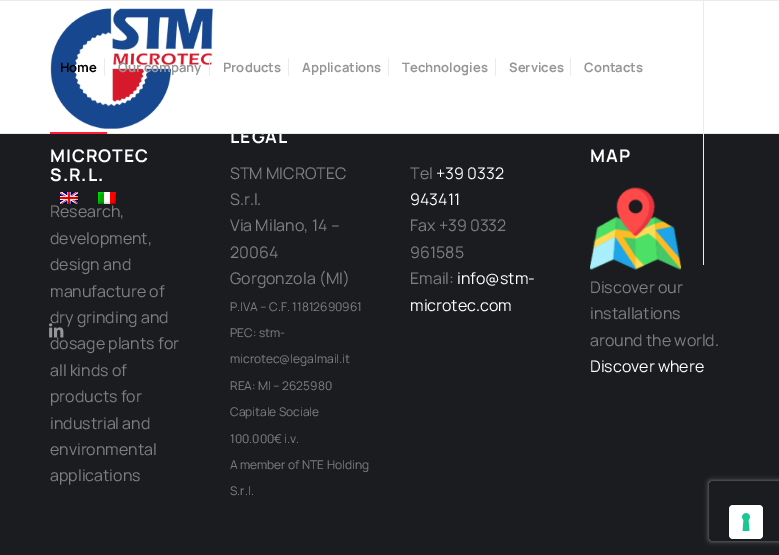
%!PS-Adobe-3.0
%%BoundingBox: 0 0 779 555
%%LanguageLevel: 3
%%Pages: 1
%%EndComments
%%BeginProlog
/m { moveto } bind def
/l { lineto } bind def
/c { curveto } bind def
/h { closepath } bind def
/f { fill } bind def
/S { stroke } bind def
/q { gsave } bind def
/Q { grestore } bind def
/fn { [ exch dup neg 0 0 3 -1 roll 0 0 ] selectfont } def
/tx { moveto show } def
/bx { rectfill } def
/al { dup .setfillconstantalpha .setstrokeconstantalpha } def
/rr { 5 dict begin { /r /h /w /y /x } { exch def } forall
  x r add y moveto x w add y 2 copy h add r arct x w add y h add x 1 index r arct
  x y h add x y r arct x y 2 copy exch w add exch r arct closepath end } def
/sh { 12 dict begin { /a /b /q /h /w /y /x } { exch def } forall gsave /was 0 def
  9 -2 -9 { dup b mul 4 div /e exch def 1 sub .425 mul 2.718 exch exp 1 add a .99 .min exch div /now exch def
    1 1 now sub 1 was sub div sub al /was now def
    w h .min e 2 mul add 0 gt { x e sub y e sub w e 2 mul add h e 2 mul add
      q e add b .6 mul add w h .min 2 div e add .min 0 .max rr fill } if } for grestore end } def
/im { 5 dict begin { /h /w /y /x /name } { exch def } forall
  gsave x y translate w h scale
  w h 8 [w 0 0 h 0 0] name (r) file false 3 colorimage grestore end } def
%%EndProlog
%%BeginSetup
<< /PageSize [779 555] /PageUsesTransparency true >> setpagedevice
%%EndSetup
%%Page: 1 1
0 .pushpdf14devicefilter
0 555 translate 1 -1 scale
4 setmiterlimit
0.102 0.11 0.125 setrgbcolor
0 0 779 555 bx
1 setgray
0 1 779 132 bx
0.922 setgray
0 0 779 1 bx
/Manrope-Bold 17.5 fn
1 setgray
230 143 m 1 0 (LEGAL) ashow
0.922 setgray
0 133 779 1 bx
(image0.raw) 50 8 163 121 im
703 1 1 264 bx
/Manrope-Bold 13 fn
0 setgray
(Home) 60 72 tx
1 0.114 0.231 setrgbcolor
50 132 57 2 bx
0.588 setgray
(Our company) 118 72 tx
0.922 setgray
104 58 1 18 bx
0.588 setgray
(Products) 223 72 tx
0.922 setgray
209 58 1 18 bx
0.588 setgray
(Applications) 302 72 tx
0.922 setgray
288 58 1 18 bx
0.588 setgray
(Technologies) 402 72 tx
0.922 setgray
388 58 1 18 bx
0.588 setgray
(Services) 509 72 tx
0.922 setgray
495 58 1 18 bx
0.588 setgray
(Contacts) 584 72 tx
0.922 setgray
570 58 1 18 bx
(image1.raw) 60 192 18 12 im
(image2.raw) 98 192 18 12 im
/Manrope-Regular 16 fn
0.498 setgray
(dry grinding and) 50 323 tx
(dosage plants for) 50 349 tx
(image3.raw) 49 323 15 15 im
/Manrope-Bold 17.5 fn
1 setgray
50 162 m 1 0 (MICROTEC) ashow
50 181 m 1 0 (S.R.L.) ashow
/Manrope-Regular 16 fn
0.498 setgray
(Research,) 50 217 tx
(development,) 50 244 tx
(design and) 50 270 tx
(manufacture of) 50 297 tx
(all kinds of) 50 376 tx
(products for) 50 402 tx
(industrial and) 50 429 tx
(environmental) 50 455 tx
(applications) 50 481 tx
(STM MICROTEC) 230 179 tx
(S.r.l.) 230 205 tx
(Via Milano, 14 –) 230 231 tx
(20064) 230 258 tx
(Gorgonzola \(MI\)) 230 284 tx
/Manrope-Regular 12 fn
(P.IVA – C.F. 11812690961) 230 311 tx
(PEC: stm-) 230 337 tx
(microtec@legalmail.it) 230 363 tx
(REA: MI – 2625980) 230 390 tx
(Capitale Sociale) 230 416 tx
(100.000€ i.v.) 230 443 tx
(A member of NTE Holding) 230 469 tx
(S.r.l.) 230 495 tx
/Manrope-Regular 16 fn
(Tel) 410 179 tx
1 setgray
(+39 0332) 436 179 tx
(943411) 410 205 tx
0.498 setgray
(Fax +39 0332) 410 231 tx
(961585) 410 258 tx
(Email:) 410 284 tx
1 setgray
(info@stm-) 457 284 tx
(microtec.com) 410 311 tx
/Manrope-Bold 17.5 fn
590 162 m 1 0 (MAP) ashow
(image4.raw) 590 187 91 83 im
/Manrope-Regular 16 fn
0.498 setgray
(Discover our) 590 293 tx
(installations) 590 319 tx
(around the world.) 590 346 tx
1 setgray
(Discover where) 590 372 tx
q
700 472 m 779 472 l 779 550 l 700 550 l h 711 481 m 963 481 l 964 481 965 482 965 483 c 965 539 l 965 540 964 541 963 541 c 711 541 l 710 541 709 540 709 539 c 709 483 l 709 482 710 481 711 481 c h eoclip newpath
0.502 setgray
709 481 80 60 2 2.5 1 sh
Q
0.086 0.094 0.106 setrgbcolor
728.5 504.5 35 35 4.5 rr S
1 setgray
729 505 34 34 4 rr f
(image5.raw) 742 513 8 18 im
.poppdf14devicefilter showpage
%%EOF
